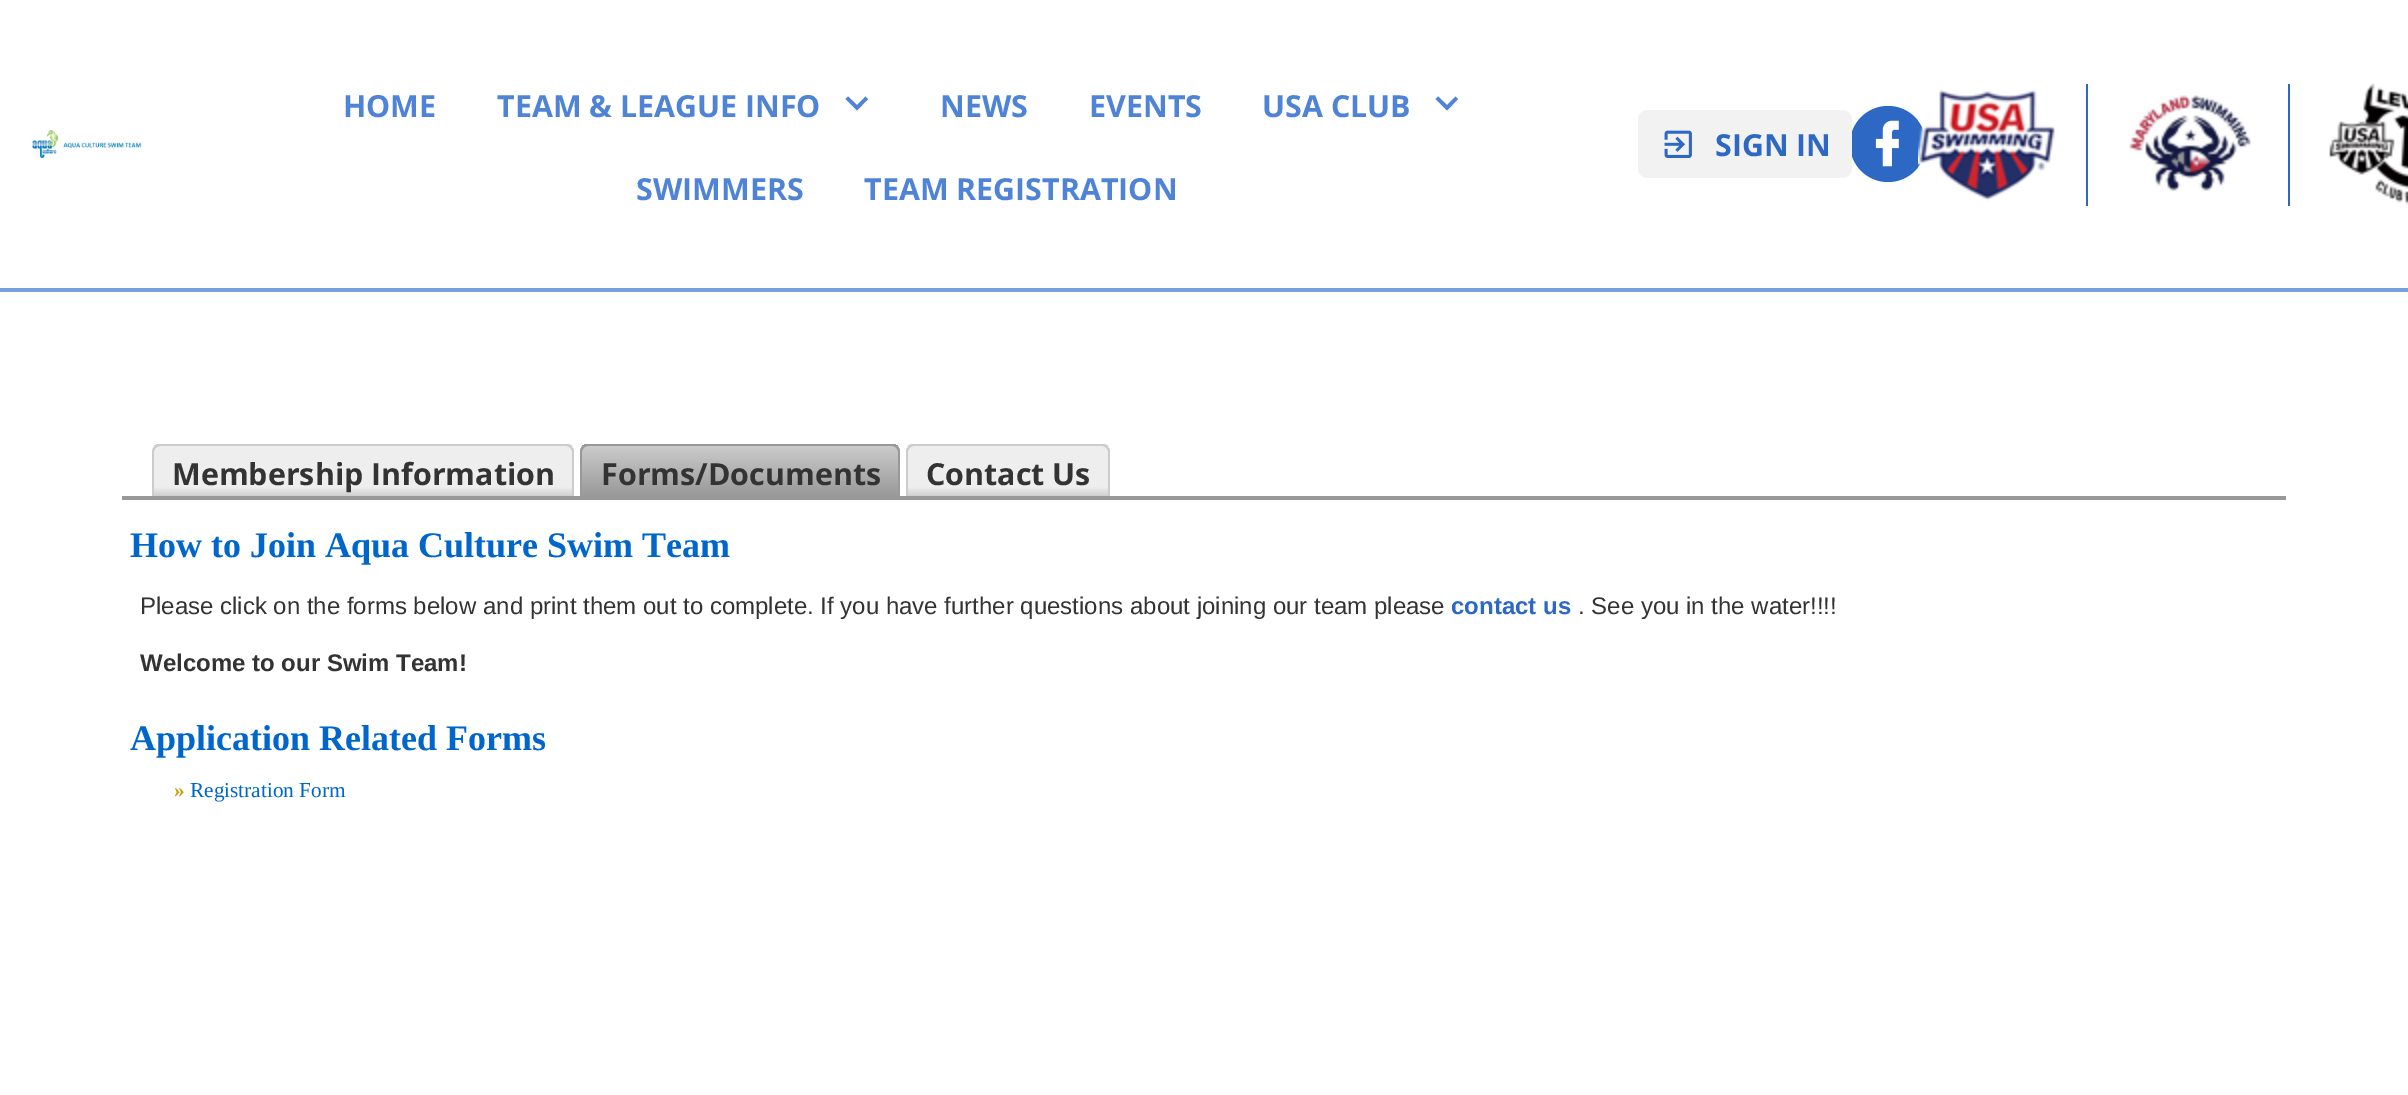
%!PS-Adobe-3.0
%%BoundingBox: 0 0 2408 1095
%%LanguageLevel: 3
%%Pages: 1
%%EndComments
%%BeginProlog
/m { moveto } bind def
/l { lineto } bind def
/c { curveto } bind def
/h { closepath } bind def
/f { fill } bind def
/q { gsave } bind def
/Q { grestore } bind def
/fn { [ exch dup neg 0 0 3 -1 roll 0 0 ] selectfont } def
/tx { moveto show } def
/bx { rectfill } def
/ci { newpath 0 360 arc closepath } def
/rr { 5 dict begin { /r /h /w /y /x } { exch def } forall
  x r add y moveto x w add y 2 copy h add r arct x w add y h add x 1 index r arct
  x y h add x y r arct x y 2 copy exch w add exch r arct closepath end } def
/im { 5 dict begin { /h /w /y /x /name } { exch def } forall
  gsave x y translate w h scale
  w h 8 [w 0 0 h 0 0] name (r) file false 3 colorimage grestore end } def
%%EndProlog
%%BeginSetup
<< /PageSize [2408 1095] >> setpagedevice
%%EndSetup
%%Page: 1 1
0 1095 translate 1 -1 scale
4 setmiterlimit
1 setgray
0 0 2408 1095 bx
(image0.raw) 32 130 110 28 im
/OpenSans-Bold 30.4 fn
0.306 0.514 0.839 setrgbcolor
(HOME) 343 117 tx
(TEAM & LEAGUE INFO) 497 117 tx
848 96.5 m 857 105 l 865.5 96.5 l 868 99 l 857 110.5 l 845.5 99 l h f
(NEWS) 940 117 tx
(EVENTS) 1089 117 tx
(USA CLUB) 1262 117 tx
1438 96.5 m 1447 105 l 1455.5 96.5 l 1458 99 l 1447 110.5 l 1435.5 99 l h f
(SWIMMERS) 636 200 tx
(TEAM REGISTRATION) 864 200 tx
0.176 0.408 0.769 setrgbcolor
1888 144 38 ci f
0.949 setgray
1638 110 214 68 10 rr f
(image1.raw) 1664 130 28 28 im
0.176 0.408 0.769 setrgbcolor
(SIGN IN) 1715 156 tx
(image2.raw) 1875 120 24 47 im
(image3.raw) 1918 89 138 112 im
2086 84 2 122 bx
(image4.raw) 2129 95 122 97 im
2288 84 2 122 bx
(image5.raw) 2329 83 79 122 im
0.467 0.627 0.878 setrgbcolor
0 288 2408 4 bx
0.6 setgray
122 496 2164 4 bx
q
160 444 m 566 444 l 570.5 444 574 447.5 574 452 c 574 496 l 152 496 l 152 452 l 152 447.5 155.5 444 160 444 c h clip newpath
q 152 444 m 574 444 l 574 446 l 152 446 l h clip newpath
<< /ShadingType 2 /ColorSpace /DeviceRGB /Coords [363 396 363 446] /Extend [true true] /Function << /FunctionType 3 /Domain [0 1] /Functions [<< /FunctionType 2 /Domain [0 1] /C0 [0.933 0.933 0.933] /C1 [0.933 0.933 0.933] /N 1 >> << /FunctionType 2 /Domain [0 1] /C0 [0.933 0.933 0.933] /C1 [0.812 0.812 0.812] /N 1 >>] /Bounds [0.82] /Encode [0 1 0 1] >> >> shfill Q
q 152 446 m 574 446 l 574 496 l 152 496 l h clip newpath
<< /ShadingType 2 /ColorSpace /DeviceRGB /Coords [363 446 363 496] /Extend [true true] /Function << /FunctionType 3 /Domain [0 1] /Functions [<< /FunctionType 2 /Domain [0 1] /C0 [0.933 0.933 0.933] /C1 [0.933 0.933 0.933] /N 1 >> << /FunctionType 2 /Domain [0 1] /C0 [0.933 0.933 0.933] /C1 [0.812 0.812 0.812] /N 1 >>] /Bounds [0.82] /Encode [0 1 0 1] >> >> shfill Q
Q
0.8 setgray
160 444 m 566 444 l 570 444 574 448 574 452 c 574 496 l 152 496 l 152 452 l 152 448 156 444 160 444 c h 160 446 m 566 446 l 569 446 572 449 572 452 c 572 496 l 154 496 l 154 452 l 154 449 157 446 160 446 c h eofill
0.2 setgray
(Membership Information) 172 485 tx
q
588 444 m 892 444 l 896.5 444 900 447.5 900 452 c 900 496 l 580 496 l 580 452 l 580 447.5 583.5 444 588 444 c h clip newpath
q 580 444 m 900 444 l 900 446 l 580 446 l h clip newpath
<< /ShadingType 2 /ColorSpace /DeviceRGB /Coords [740 396 740 446] /Extend [true true] /Function << /FunctionType 2 /Domain [0 1] /C0 [0.796 0.796 0.796] /C1 [0.6 0.6 0.6] /N 1 >> >> shfill Q
q 580 446 m 900 446 l 900 496 l 580 496 l h clip newpath
<< /ShadingType 2 /ColorSpace /DeviceRGB /Coords [740 446 740 496] /Extend [true true] /Function << /FunctionType 2 /Domain [0 1] /C0 [0.796 0.796 0.796] /C1 [0.6 0.6 0.6] /N 1 >> >> shfill Q
Q
0.6 setgray
588 444 m 892 444 l 896 444 900 448 900 452 c 900 496 l 580 496 l 580 452 l 580 448 584 444 588 444 c h 588 446 m 892 446 l 895 446 898 449 898 452 c 898 496 l 582 496 l 582 452 l 582 449 585 446 588 446 c h eofill
0.2 setgray
(Forms/Documents) 601 485 tx
q
914 444 m 1102 444 l 1106.5 444 1110 447.5 1110 452 c 1110 496 l 906 496 l 906 452 l 906 447.5 909.5 444 914 444 c h clip newpath
q 906 444 m 1110 444 l 1110 446 l 906 446 l h clip newpath
<< /ShadingType 2 /ColorSpace /DeviceRGB /Coords [1008 396 1008 446] /Extend [true true] /Function << /FunctionType 3 /Domain [0 1] /Functions [<< /FunctionType 2 /Domain [0 1] /C0 [0.933 0.933 0.933] /C1 [0.933 0.933 0.933] /N 1 >> << /FunctionType 2 /Domain [0 1] /C0 [0.933 0.933 0.933] /C1 [0.812 0.812 0.812] /N 1 >>] /Bounds [0.82] /Encode [0 1 0 1] >> >> shfill Q
q 906 446 m 1110 446 l 1110 496 l 906 496 l h clip newpath
<< /ShadingType 2 /ColorSpace /DeviceRGB /Coords [1008 446 1008 496] /Extend [true true] /Function << /FunctionType 3 /Domain [0 1] /Functions [<< /FunctionType 2 /Domain [0 1] /C0 [0.933 0.933 0.933] /C1 [0.933 0.933 0.933] /N 1 >> << /FunctionType 2 /Domain [0 1] /C0 [0.933 0.933 0.933] /C1 [0.812 0.812 0.812] /N 1 >>] /Bounds [0.82] /Encode [0 1 0 1] >> >> shfill Q
Q
0.8 setgray
914 444 m 1102 444 l 1106 444 1110 448 1110 452 c 1110 496 l 906 496 l 906 452 l 906 448 910 444 914 444 c h 914 446 m 1102 446 l 1105 446 1108 449 1108 452 c 1108 496 l 908 496 l 908 452 l 908 449 911 446 914 446 c h eofill
0.2 setgray
(Contact Us) 926 485 tx
/LiberationSerif-Bold 36 fn
0 0.4 0.8 setrgbcolor
(How to Join Aqua Culture Swim Team) 130 557 tx
/LiberationSans-Regular 24 fn
0.2 setgray
(Please click on the forms below and print them out to complete. If you have further questions about joining our team please) 140 614 tx
/LiberationSans-Bold 24 fn
0.176 0.408 0.769 setrgbcolor
(contact us) 1451 614 tx
/LiberationSans-Regular 24 fn
0.2 setgray
(. See you in the water!!!!) 1578 614 tx
/LiberationSans-Bold 24 fn
(Welcome to our Swim Team!) 140 671 tx
/LiberationSerif-Bold 36 fn
0 0.4 0.8 setrgbcolor
(Application Related Forms) 130 750 tx
/LiberationSerif-Bold 21.25 fn
0.8 0.6 0 setrgbcolor
(») 174 797 tx
/LiberationSerif-Regular 21.25 fn
0 0.4 0.8 setrgbcolor
(Registration Form) 190 797 tx
showpage
%%EOF
